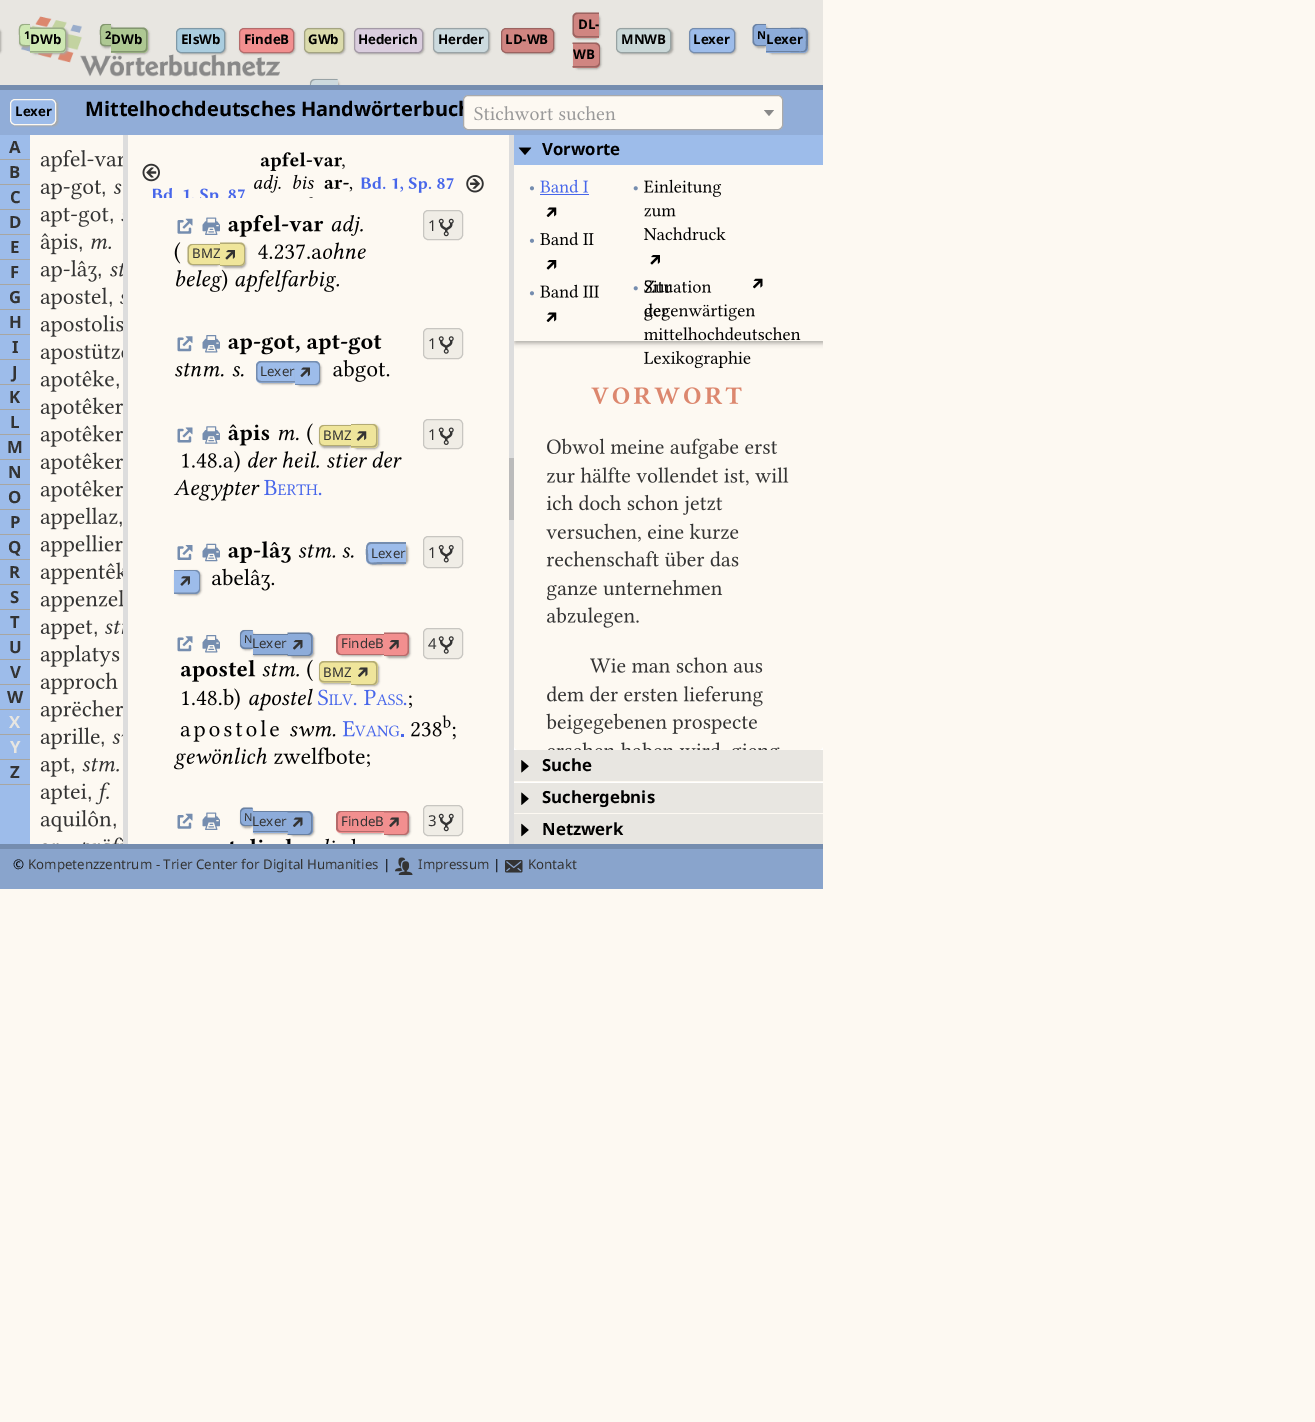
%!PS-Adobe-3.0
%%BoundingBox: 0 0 1315 1422
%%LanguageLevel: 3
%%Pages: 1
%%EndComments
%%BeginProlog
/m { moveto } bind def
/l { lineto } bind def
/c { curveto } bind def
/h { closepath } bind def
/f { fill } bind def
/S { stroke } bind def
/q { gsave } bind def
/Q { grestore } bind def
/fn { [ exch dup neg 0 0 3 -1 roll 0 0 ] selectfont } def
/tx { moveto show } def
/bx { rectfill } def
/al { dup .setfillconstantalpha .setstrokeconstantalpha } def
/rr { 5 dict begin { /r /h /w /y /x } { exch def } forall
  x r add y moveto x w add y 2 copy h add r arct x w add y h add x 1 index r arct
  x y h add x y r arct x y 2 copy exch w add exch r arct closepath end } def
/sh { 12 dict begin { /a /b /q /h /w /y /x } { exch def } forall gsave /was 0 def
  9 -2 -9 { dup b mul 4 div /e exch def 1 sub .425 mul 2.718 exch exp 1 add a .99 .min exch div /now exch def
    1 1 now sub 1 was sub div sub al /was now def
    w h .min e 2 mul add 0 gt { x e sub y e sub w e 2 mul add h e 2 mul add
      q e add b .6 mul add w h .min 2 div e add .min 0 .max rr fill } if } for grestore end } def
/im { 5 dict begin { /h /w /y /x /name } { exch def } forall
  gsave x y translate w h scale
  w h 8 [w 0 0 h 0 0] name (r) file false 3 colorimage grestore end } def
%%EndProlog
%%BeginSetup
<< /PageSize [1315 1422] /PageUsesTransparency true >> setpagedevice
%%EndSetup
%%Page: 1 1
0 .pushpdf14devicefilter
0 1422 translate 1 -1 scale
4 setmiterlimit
0.992 0.976 0.949 setrgbcolor
0 0 1315 1422 bx
0.459 0.553 0.686 setrgbcolor
0 85 823 5 bx
0.91 0.902 0.882 setrgbcolor
0 0 823 85 bx
(image0.raw) 21 16 259 61 im
0.659 0.651 0.631 setrgbcolor
-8 29 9 25 5 1 1 sh
20 25 11 23 5 1 1 sh
0.808 0.91 0.702 setrgbcolor
24 24 m 30 24 l 30 46 l 24 46 l 21 46 19 44 19 41 c 19 29 l 19 26 21 24 24 24 c h f
0.604 0.682 0.525 setrgbcolor
24 24 m 30 24 l 30 46 l 26 46 20 47.5 19 42.5 c 19 35 l 19 31 17.5 24 24 24 c h 24 25 m 30 25 l 30 45 l 20 45 20 46 20 35 c 20 32 18.5 25 24 25 c h eofill
0.659 0.651 0.631 setrgbcolor
31 29 37 25 5 1 1 sh
/NotoSans-Bold 11 fn
0 setgray
(1) 24 39 tx
0.808 0.91 0.702 setrgbcolor
30 28 m 61 28 l 64 28 66 30 66 33 c 66 48 l 66 51 64 53 61 53 c 30 53 l h f
0.604 0.682 0.525 setrgbcolor
30 27.5 m 61 27.5 l 64 27.5 66 29.5 66 32.5 c 66 47.5 l 66 50.5 64 52.5 61 52.5 c 30 52.5 l h 30 29 m 61 29 l 63.5 29 65 30.5 65 32.5 c 65 47.5 l 65 49.5 63.5 51 61 51 c 30 51 l h eofill
/NotoSans-Bold 13.3 fn
0 setgray
(DWb) 30 44 tx
0.659 0.651 0.631 setrgbcolor
101 25 12 23 5 1 1 sh
0.682 0.784 0.576 setrgbcolor
105 24 m 111 24 l 111 46 l 105 46 l 102 46 100 44 100 41 c 100 29 l 100 26 102 24 105 24 c h f
0.51 0.588 0.431 setrgbcolor
105 24 m 111 24 l 111 46 l 107.5 46 101 47.5 100 42.5 c 100 35 l 100 31 99 24 105 24 c h 105 25 m 111 25 l 111 45 l 101 45 101 46 101 35 c 101 32 100 25 105 25 c h eofill
0.659 0.651 0.631 setrgbcolor
113 29 36 25 5 1 1 sh
/NotoSans-Bold 11 fn
0 setgray
(2) 105 39 tx
0.682 0.784 0.576 setrgbcolor
111 28 m 143 28 l 146 28 148 30 148 33 c 148 48 l 148 51 146 53 143 53 c 111 53 l h f
0.51 0.588 0.431 setrgbcolor
111 27.5 m 142.5 27.5 l 145.5 27.5 147.5 29.5 147.5 32.5 c 147.5 47.5 l 147.5 50.5 145.5 52.5 142.5 52.5 c 111 52.5 l h 111 29 m 142.5 29 l 144.5 29 146 30.5 146 32.5 c 146 47.5 l 146 49.5 144.5 51 142.5 51 c 111 51 l h eofill
/NotoSans-Bold 13.3 fn
0 setgray
(DWb) 111 44 tx
0.659 0.651 0.631 setrgbcolor
178 29 48 25 5 1 1 sh
0.667 0.804 0.875 setrgbcolor
176.5 28.5 48 24 4.5 rr q f Q
0.498 0.6 0.655 setrgbcolor
S
0 setgray
(ElsWb) 181 44 tx
0.659 0.651 0.631 setrgbcolor
240 29 55 25 5 1 1 sh
0.949 0.561 0.561 setrgbcolor
239.5 28.5 54 24 4.5 rr q f Q
0.71 0.42 0.42 setrgbcolor
S
0 setgray
(FindeB) 244 44 tx
0.659 0.651 0.631 setrgbcolor
305 29 40 25 5 1 1 sh
0.859 0.859 0.675 setrgbcolor
304.5 28.5 39 24 4.5 rr q f Q
0.643 0.643 0.506 setrgbcolor
S
0 setgray
(GWb) 308 44 tx
0.659 0.651 0.631 setrgbcolor
355 29 69 25 5 1 1 sh
0.855 0.804 0.871 setrgbcolor
354.5 28.5 68 24 4.5 rr q f Q
0.639 0.6 0.651 setrgbcolor
S
0 setgray
(Hederich) 358 44 tx
0.659 0.651 0.631 setrgbcolor
434 29 56 25 5 1 1 sh
0.8 0.855 0.871 setrgbcolor
433.5 28.5 55 24 4.5 rr q f Q
0.6 0.639 0.651 setrgbcolor
S
0 setgray
(Herder) 438 44 tx
0.659 0.651 0.631 setrgbcolor
503 29 52 25 5 1 1 sh
0.816 0.522 0.506 setrgbcolor
501.5 28.5 52 24 4.5 rr q f Q
0.612 0.388 0.376 setrgbcolor
S
0 setgray
(LD-WB) 505 44 tx
0.659 0.651 0.631 setrgbcolor
574 14 26 25 5 1 1 sh
0.816 0.522 0.506 setrgbcolor
578 13 m 599 13 l 599 38 l 578 38 l 575 38 573 36 573 33 c 573 18 l 573 15 575 13 578 13 c h f
0.612 0.388 0.376 setrgbcolor
577.5 12.5 m 599 12.5 l 599 37.5 l 577.5 37.5 l 574.5 37.5 572.5 35.5 572.5 32.5 c 572.5 17.5 l 572.5 14.5 574.5 12.5 577.5 12.5 c h 577.5 14 m 599 14 l 599 36 l 577.5 36 l 575.5 36 574 34.5 574 32.5 c 574 17.5 l 574 15.5 575.5 14 577.5 14 c h eofill
0 setgray
(DL-) 578 29 tx
0.659 0.651 0.631 setrgbcolor
574 44 27 25 5 1 1 sh
0.816 0.522 0.506 setrgbcolor
573 43 m 595 43 l 598 43 600 45 600 48 c 600 63 l 600 66 598 68 595 68 c 573 68 l h f
0.612 0.388 0.376 setrgbcolor
572.5 42.5 m 595 42.5 l 598 42.5 600 44.5 600 47.5 c 600 62.5 l 600 65.5 598 67.5 595 67.5 c 572.5 67.5 l h 572.5 44 m 595 44 l 597 44 599 45.5 599 47.5 c 599 62.5 l 599 64.5 597 66 595 66 c 572.5 66 l h eofill
0 setgray
(WB) 573 59 tx
0.659 0.651 0.631 setrgbcolor
618 29 55 25 5 1 1 sh
0.792 0.847 0.847 setrgbcolor
616.5 28.5 54 24 4.5 rr q f Q
0.592 0.635 0.635 setrgbcolor
S
0 setgray
(MNWB) 621 44 tx
0.659 0.651 0.631 setrgbcolor
690 29 46 25 5 1 1 sh
0.616 0.737 0.918 setrgbcolor
689.5 28.5 45 24 4.5 rr q f Q
0.459 0.553 0.686 setrgbcolor
S
0 setgray
(Lexer) 693 44 tx
0.659 0.651 0.631 setrgbcolor
754 25 14 23 5 1 1 sh
0.553 0.675 0.855 setrgbcolor
758 24 m 766 24 l 766 46 l 758 46 l 755 46 753 44 753 41 c 753 29 l 753 26 755 24 758 24 c h f
0.412 0.506 0.639 setrgbcolor
757.5 24 m 766 24 l 766 46 l 757.5 46 l 754.5 46 752.5 44 752.5 41 c 752.5 29 l 752.5 26 754.5 24 757.5 24 c h 757.5 25 m 766 25 l 766 45 l 757.5 45 l 755.5 45 754 43.5 754 41 c 754 29 l 754 26.5 755.5 25 757.5 25 c h eofill
0.659 0.651 0.631 setrgbcolor
768 29 41 25 5 1 1 sh
/NotoSans-Bold 11 fn
0 setgray
(N) 757 39 tx
0.553 0.675 0.855 setrgbcolor
766 28 m 803 28 l 806 28 808 30 808 33 c 808 48 l 808 51 806 53 803 53 c 766 53 l h f
0.412 0.506 0.639 setrgbcolor
766 28 m 790 28 l 806 28 808 25 808 40 c 808 55 806 52 790 52 c 766 52 l h 766 29 m 790 29 l 806 29 806 26 806 40 c 806 54 806 51 790 51 c 766 51 l h eofill
/NotoSans-Bold 13.3 fn
0 setgray
(Lexer) 766 44 tx
q
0 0 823 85 rectclip
0.659 0.651 0.631 setrgbcolor
311 80 28 25 5 1 1 sh
Q
0.804 0.855 0.871 setrgbcolor
315 79 m 338 79 l 338 85 l 310 85 l 310 84 l 310 81 312 79 315 79 c h f
q
0 0 823 85 rectclip
0.6 0.639 0.651 setrgbcolor
315 79 m 337.5 79 l 337.5 104 l 315 104 l 312 104 310 101.5 310 99 c 310 84 l 310 81 312 79 315 79 c h 315 80 m 337.5 80 l 337.5 102.5 l 315 102.5 l 313 102.5 311 101 311 99 c 311 84 l 311 81.5 313 80 315 80 c h eofill
Q
0.569 0.678 0.847 setrgbcolor
0 90 823 45 bx
0.659 0.651 0.631 setrgbcolor
11 100 47 26 5 1 1 sh
0.616 0.737 0.918 setrgbcolor
10.5 99.5 45 25 4.5 rr q f Q
0.992 0.976 0.949 setrgbcolor
S
0 setgray
(Lexer) 15 116 tx
/NotoSans-Bold 20 fn
(Mittelhochdeutsches Handwörterbuch) 85 116 tx
0.992 0.976 0.949 setrgbcolor
463.5 95.5 319 34 4.5 rr q f Q
0.667 setgray
S
(image1.raw) 474 106 142 15 im
0.533 setgray
764 110 m 774 110 l 769 116 l h f
0.867 setgray
123 135 5 709 bx
1 setgray
514 746 309 37 bx
0.992 0.976 0.949 setrgbcolor
514 165 m 823 165 l 823 746 l 823 748 821 750 819 750 c 518 750 l 516 750 514 748 514 746 c h f
q
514 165 m 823 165 l 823 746 l 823 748 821 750 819 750 c 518 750 l 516 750 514 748 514 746 c h clip newpath
0.659 0.651 0.631 setrgbcolor
515 166 309 177 0 2.5 1 sh
Q
0.867 setgray
509 135 5 709 bx
0.733 setgray
509 458 5 62 bx
0.616 0.737 0.918 setrgbcolor
0 135 30 709 bx
0.659 0.651 0.631 setrgbcolor
0 159 30 1 bx
/NotoSans-Bold 16.75 fn
0.2 setgray
(A) 9 153 tx
0.659 0.651 0.631 setrgbcolor
0 184 30 1 bx
0.2 setgray
(B) 9 178 tx
0.659 0.651 0.631 setrgbcolor
0 209 30 1 bx
0.2 setgray
(C) 10 203 tx
0.659 0.651 0.631 setrgbcolor
0 234 30 1 bx
0.2 setgray
(D) 9 228 tx
0.659 0.651 0.631 setrgbcolor
0 259 30 1 bx
0.2 setgray
(E) 10 253 tx
0.659 0.651 0.631 setrgbcolor
0 284 30 1 bx
0.2 setgray
(F) 10 278 tx
0.659 0.651 0.631 setrgbcolor
0 309 30 1 bx
0.2 setgray
(G) 9 303 tx
0.659 0.651 0.631 setrgbcolor
0 334 30 1 bx
0.2 setgray
(H) 9 328 tx
0.659 0.651 0.631 setrgbcolor
0 359 30 1 bx
0.2 setgray
(I) 12 353 tx
0.659 0.651 0.631 setrgbcolor
0 384 30 1 bx
0.2 setgray
(J) 12 378 tx
0.659 0.651 0.631 setrgbcolor
0 409 30 1 bx
0.2 setgray
(K) 9 403 tx
0.659 0.651 0.631 setrgbcolor
0 434 30 1 bx
0.2 setgray
(L) 10 428 tx
0.659 0.651 0.631 setrgbcolor
0 459 30 1 bx
0.2 setgray
(M) 7 453 tx
0.659 0.651 0.631 setrgbcolor
0 484 30 1 bx
0.2 setgray
(N) 8 478 tx
0.659 0.651 0.631 setrgbcolor
0 509 30 1 bx
0.2 setgray
(O) 8 503 tx
0.659 0.651 0.631 setrgbcolor
0 534 30 1 bx
0.2 setgray
(P) 10 528 tx
0.659 0.651 0.631 setrgbcolor
0 559 30 1 bx
0.2 setgray
(Q) 8 553 tx
0.659 0.651 0.631 setrgbcolor
0 584 30 1 bx
0.2 setgray
(R) 9 578 tx
0.659 0.651 0.631 setrgbcolor
0 609 30 1 bx
0.2 setgray
(S) 10 603 tx
0.659 0.651 0.631 setrgbcolor
0 634 30 1 bx
0.2 setgray
(T) 10 628 tx
0.659 0.651 0.631 setrgbcolor
0 659 30 1 bx
0.2 setgray
(U) 9 653 tx
0.659 0.651 0.631 setrgbcolor
0 684 30 1 bx
0.2 setgray
(V) 10 678 tx
0.659 0.651 0.631 setrgbcolor
0 709 30 1 bx
0.2 setgray
(W) 7 703 tx
0.659 0.651 0.631 setrgbcolor
0 734 30 1 bx
0.91 0.902 0.882 setrgbcolor
(X) 9 728 tx
0.659 0.651 0.631 setrgbcolor
0 759 30 1 bx
0.91 0.902 0.882 setrgbcolor
(Y) 10 753 tx
0.659 0.651 0.631 setrgbcolor
0 784 30 1 bx
0.2 setgray
(Z) 10 778 tx
(image2.raw) 40 150 83 22 im
(image3.raw) 40 180 61 20 im
/LiberationSans-Regular 20 fn
(,) 101 194 tx
(image4.raw) 113 183 9 11 im
(image5.raw) 40 207 69 20 im
(,) 109 221 tx
(image6.raw) 121 213 2 9 im
(image7.raw) 40 233 38 22 im
(,) 78 249 tx
(image8.raw) 91 238 20 11 im
(image9.raw) 40 260 57 22 im
(,) 97 276 tx
(image10.raw) 110 263 13 14 im
(image11.raw) 40 287 68 23 im
(,) 108 304 tx
(image12.raw) 120 294 3 10 im
(image13.raw) 40 315 83 22 im
(image14.raw) 40 344 83 21 im
(image15.raw) 40 370 74 22 im
(,) 115 386 tx
(image16.raw) 40 397 83 23 im
(image17.raw) 40 425 83 22 im
(image16.raw) 40 452 83 23 im
(image17.raw) 40 480 83 22 im
(image18.raw) 40 507 78 23 im
(,) 118 524 tx
(image19.raw) 40 535 83 22 im
(image20.raw) 40 562 83 23 im
(image21.raw) 40 590 83 22 im
(image22.raw) 40 620 53 20 im
(,) 93 634 tx
(image23.raw) 105 620 18 14 im
(image24.raw) 40 645 80 22 im
(image25.raw) 40 672 78 23 im
(image26.raw) 40 700 83 22 im
(image27.raw) 40 727 60 23 im
(,) 100 744 tx
(image28.raw) 112 733 11 11 im
(image29.raw) 40 757 30 20 im
(,) 70 771 tx
(image30.raw) 82 758 37 14 im
(image31.raw) 40 783 47 22 im
(,) 87 799 tx
(image32.raw) 95 782 15 23 im
(image33.raw) 40 810 72 22 im
(,) 112 826 tx
(image34.raw) 43 843 16 1 im
(image35.raw) 83 837 40 7 im
(image36.raw) 142 163 18 19 im
(image37.raw) 152 187 93 11 im
(image38.raw) 260 152 82 19 im
(image39.raw) 342 164 3 5 im
(image40.raw) 254 174 27 19 im
(image41.raw) 293 174 21 15 im
(image42.raw) 324 179 25 10 im
(image43.raw) 349 186 4 6 im
(image44.raw) 309 197 4 1 im
(image45.raw) 361 176 93 17 im
(image46.raw) 466 175 18 18 im
(image47.raw) 177 218 16 16 im
(image48.raw) 202 217 18 18 im
(image49.raw) 228 215 96 22 im
(image50.raw) 331 215 32 21 im
0.941 0.929 0.902 setrgbcolor
423.5 210.5 39 29 4.5 rr q f Q
0.784 0.776 0.757 setrgbcolor
S
/NotoSans-Regular 15 fn
0.2 setgray
(1) 428 231 tx
(image51.raw) 438 218 16 19 im
(image52.raw) 174 242 7 22 im
0.659 0.651 0.631 setrgbcolor
189 245 32 21 5 1 1 sh
0.937 0.898 0.608 setrgbcolor
193 244 m 220 244 l 220 265 l 193 265 l 190 265 188 263 188 260 c 188 249 l 188 246 190 244 193 244 c h f
0.702 0.671 0.455 setrgbcolor
192.5 244 m 220 244 l 220 265 l 192.5 265 l 189.5 265 187.5 263 187.5 260 c 187.5 249 l 187.5 246 189.5 244 192.5 244 c h 192.5 245 m 220 245 l 220 264 l 192.5 264 l 190.5 264 189 262 189 260 c 189 249 l 189 246.5 190.5 245 192.5 245 c h eofill
0.659 0.651 0.631 setrgbcolor
221 244 25 24 5 1 1 sh
0.937 0.898 0.608 setrgbcolor
220 243 m 240 243 l 243 243 245 245 245 248 c 245 261 l 245 264 243 266 240 266 c 220 266 l h f
0.702 0.671 0.455 setrgbcolor
220 242.5 m 240 242.5 l 243 242.5 245 244.5 245 247.5 c 245 261 l 245 264 243 266 240 266 c 220 266 l h 220 244 m 240 244 l 242 244 244 245.5 244 247.5 c 244 261 l 244 263.5 242 265 240 265 c 220 265 l h eofill
/NotoSans-Regular 13.3 fn
0.2 setgray
(BMZ) 192 258 tx
(image53.raw) 225 250 10 10 im
(image54.raw) 258 244 64 16 im
(image55.raw) 323 242 43 17 im
(image56.raw) 176 270 46 22 im
(image57.raw) 221 269 7 22 im
(image58.raw) 235 270 104 22 im
(image59.raw) 177 336 16 16 im
(image60.raw) 202 335 18 18 im
(image61.raw) 228 335 67 20 im
(image62.raw) 295 345 5 8 im
(image63.raw) 307 335 75 20 im
0.941 0.929 0.902 setrgbcolor
423.5 328.5 39 30 4.5 rr q f Q
0.784 0.776 0.757 setrgbcolor
S
/NotoSans-Regular 15 fn
0.2 setgray
(1) 428 349 tx
(image64.raw) 438 336 16 18 im
(image65.raw) 175 363 49 14 im
(image66.raw) 232 366 12 11 im
0.659 0.651 0.631 setrgbcolor
258 363 38 21 5 1 1 sh
0.616 0.737 0.918 setrgbcolor
261 361 m 295 361 l 295 383 l 261 383 l 258 383 256 381 256 378 c 256 366 l 256 363 258 361 261 361 c h f
0.459 0.553 0.686 setrgbcolor
261 361 m 295 361 l 295 382.5 l 261 382.5 l 258.5 382.5 256 380.5 256 377.5 c 256 366 l 256 363.5 258.5 361 261 361 c h 261 362.5 m 295 362.5 l 295 381 l 261 381 l 259 381 257.5 379.5 257.5 377.5 c 257.5 366 l 257.5 364 259 362.5 261 362.5 c h eofill
0.659 0.651 0.631 setrgbcolor
296 363 25 23 5 1 1 sh
0.616 0.737 0.918 setrgbcolor
295 361 m 315 361 l 318 361 320 363 320 366 c 320 380 l 320 383 318 385 315 385 c 295 385 l h f
0.459 0.553 0.686 setrgbcolor
295 361 m 315 361 l 318 361 320 363.5 320 366 c 320 380 l 320 383 318 385 315 385 c 295 385 l h 295 362.5 m 315 362.5 l 317 362.5 319 364 319 366 c 319 380 l 319 382 317 384 315 384 c 295 384 l h eofill
/NotoSans-Regular 13.3 fn
0.2 setgray
(Lexer) 260 376 tx
(image67.raw) 300 367 10 10 im
(image68.raw) 333 360 57 22 im
(image69.raw) 177 427 16 16 im
(image70.raw) 202 426 18 18 im
(image71.raw) 228 424 42 22 im
(image72.raw) 278 429 21 12 im
(image73.raw) 307 423 6 22 im
0.659 0.651 0.631 setrgbcolor
320 426 33 22 5 1 1 sh
0.937 0.898 0.608 setrgbcolor
324 425 m 351 425 l 351 446 l 324 446 l 321 446 319 444 319 441 c 319 430 l 319 427 321 425 324 425 c h f
0.702 0.671 0.455 setrgbcolor
324 425 m 351 425 l 351 446 l 324 446 l 321 446 319 444 319 441 c 319 430 l 319 427 321 425 324 425 c h 324 426 m 351 426 l 351 445 l 324 445 l 321.5 445 320 443.5 320 441 c 320 430 l 320 428 321.5 426 324 426 c h eofill
0.659 0.651 0.631 setrgbcolor
353 425 26 24 5 1 1 sh
0.937 0.898 0.608 setrgbcolor
351 424 m 373 424 l 376 424 378 426 378 429 c 378 443 l 378 446 376 448 373 448 c 351 448 l h f
0.702 0.671 0.455 setrgbcolor
351 424 m 372.5 424 l 375.5 424 377.5 426 377.5 429 c 377.5 442.5 l 377.5 445.5 375.5 447.5 372.5 447.5 c 351 447.5 l h 351 425 m 372.5 425 l 374.5 425 376 426.5 376 429 c 376 442.5 l 376 444.5 374.5 446 372.5 446 c 351 446 l h eofill
0.2 setgray
(BMZ) 323 440 tx
(image74.raw) 356 431 11 10 im
0.941 0.929 0.902 setrgbcolor
423.5 419.5 39 29 4.5 rr q f Q
0.784 0.776 0.757 setrgbcolor
S
/NotoSans-Regular 15 fn
0.2 setgray
(1) 428 440 tx
(image75.raw) 438 427 16 18 im
(image76.raw) 182 453 52 15 im
(image77.raw) 234 451 6 22 im
(image78.raw) 248 451 29 17 im
(image79.raw) 283 451 36 17 im
(image80.raw) 327 453 40 15 im
(image81.raw) 372 451 30 17 im
(image82.raw) 173 479 87 22 im
(image83.raw) 264 479 13 17 im
(image84.raw) 277 484 41 12 im
(image85.raw) 318 492 4 4 im
(image86.raw) 177 545 16 15 im
(image87.raw) 202 543 18 19 im
(image88.raw) 228 541 63 22 im
(image89.raw) 298 544 38 14 im
(image90.raw) 342 547 12 11 im
0.659 0.651 0.631 setrgbcolor
368 544 40 21 5 1 1 sh
0.616 0.737 0.918 setrgbcolor
371 543 m 406 543 l 406 564 l 371 564 l 368 564 366 562 366 559 c 366 548 l 366 545 368 543 371 543 c h f
0.459 0.553 0.686 setrgbcolor
371 542 m 406 542 l 406 564 l 383 564 l 372 564 366 567 366 555 c 366 551 365 542 371 542 c h 371 544 m 406 544 l 406 562 l 383 562 l 369 562 368 566 368 553 c 368 550 366 544 371 544 c h eofill
0.659 0.651 0.631 setrgbcolor
175 571 26 24 5 1 1 sh
0.616 0.737 0.918 setrgbcolor
174 570 m 195 570 l 198 570 200 572 200 575 c 200 589 l 200 592 198 594 195 594 c 174 594 l h f
0.459 0.553 0.686 setrgbcolor
174 570 m 195 570 l 198 570 200 572 200 575 c 200 589 l 200 591.5 198 594 195 594 c 174 594 l h 174 571 m 195 571 l 197 571 199 573 199 575 c 199 589 l 199 591 197 592.5 195 592.5 c 174 592.5 l h eofill
/NotoSans-Regular 13.3 fn
0.2 setgray
(Lexer) 371 558 tx
(image91.raw) 180 576 10 10 im
0.941 0.929 0.902 setrgbcolor
423.5 536.5 39 31 4.5 rr q f Q
0.784 0.776 0.757 setrgbcolor
S
/NotoSans-Regular 15 fn
0.2 setgray
(1) 428 558 tx
(image92.raw) 438 545 16 18 im
(image93.raw) 212 568 63 23 im
(image59.raw) 177 636 16 16 im
(image60.raw) 202 635 18 18 im
0.659 0.651 0.631 setrgbcolor
241 631 13 19 5 1 1 sh
0.553 0.675 0.855 setrgbcolor
245 630 m 253 630 l 253 649 l 245 649 l 242 649 240 647 240 644 c 240 635 l 240 632 242 630 245 630 c h f
0.412 0.506 0.639 setrgbcolor
245 630 m 252.5 630 l 252.5 649 l 245 649 l 242 649 240 646.5 240 644 c 240 635 l 240 632 242 630 245 630 c h 245 631 m 252.5 631 l 252.5 647.5 l 245 647.5 l 243 647.5 241 646 241 644 c 241 635 l 241 633 243 631 245 631 c h eofill
0.659 0.651 0.631 setrgbcolor
254 635 35 21 0 1 1 sh
0.553 0.675 0.855 setrgbcolor
253 635 35 19 bx
0.412 0.506 0.639 setrgbcolor
253 634 35 1 bx
253 654 35 1 bx
0.659 0.651 0.631 setrgbcolor
289 634 25 24 5 1 1 sh
0.553 0.675 0.855 setrgbcolor
288 633 m 308 633 l 311 633 313 635 313 638 c 313 651 l 313 654 311 656 308 656 c 288 656 l h f
0.412 0.506 0.639 setrgbcolor
287.5 632.5 m 307.5 632.5 l 310.5 632.5 312.5 634.5 312.5 637.5 c 312.5 651 l 312.5 654 310.5 656 307.5 656 c 287.5 656 l h 287.5 634 m 307.5 634 l 309.5 634 311 635.5 311 637.5 c 311 651 l 311 653.5 309.5 655 307.5 655 c 287.5 655 l h eofill
/NotoSans-Regular 11 fn
0.2 setgray
(N) 244 643 tx
/NotoSans-Regular 13.3 fn
(Lexer) 252 648 tx
(image94.raw) 293 640 10 10 im
0.659 0.651 0.631 setrgbcolor
338 635 47 21 5 1 1 sh
0.949 0.561 0.561 setrgbcolor
341 634 m 384 634 l 384 655 l 341 655 l 338 655 336 653 336 650 c 336 639 l 336 636 338 634 341 634 c h f
0.71 0.42 0.42 setrgbcolor
341 634 m 384 634 l 384 655 l 341 655 l 338 655 336 653 336 650 c 336 639 l 336 636 338 634 341 634 c h 341 635 m 384 635 l 384 654 l 341 654 l 339 654 338 652 338 650 c 338 639 l 338 637 339 635 341 635 c h eofill
0.659 0.651 0.631 setrgbcolor
385 634 25 24 5 1 1 sh
0.949 0.561 0.561 setrgbcolor
384 633 m 404 633 l 407 633 409 635 409 638 c 409 651 l 409 654 407 656 404 656 c 384 656 l h f
0.71 0.42 0.42 setrgbcolor
384 632.5 m 404 632.5 l 406.5 632.5 409 634.5 409 637.5 c 409 651 l 409 654 406.5 656 404 656 c 384 656 l h 384 634 m 404 634 l 406 634 407.5 635.5 407.5 637.5 c 407.5 651 l 407.5 653.5 406 655 404 655 c 384 655 l h eofill
0.2 setgray
(FindeB) 341 648 tx
(image95.raw) 389 640 10 10 im
0.941 0.929 0.902 setrgbcolor
423.5 628.5 39 30 4.5 rr q f Q
0.784 0.776 0.757 setrgbcolor
S
/NotoSans-Regular 15 fn
0.2 setgray
(4) 428 649 tx
(image64.raw) 438 636 16 18 im
(image96.raw) 181 660 75 22 im
(image97.raw) 262 663 37 14 im
(image98.raw) 307 659 6 22 im
0.659 0.651 0.631 setrgbcolor
320 663 33 21 5 1 1 sh
0.937 0.898 0.608 setrgbcolor
324 661 m 351 661 l 351 683 l 324 683 l 321 683 319 681 319 678 c 319 666 l 319 663 321 661 324 661 c h f
0.702 0.671 0.455 setrgbcolor
324 661 m 351 661 l 351 682.5 l 324 682.5 l 321 682.5 319 680.5 319 677.5 c 319 666 l 319 663.5 321 661 324 661 c h 324 662.5 m 351 662.5 l 351 681 l 324 681 l 321.5 681 320 679.5 320 677.5 c 320 666 l 320 664 321.5 662.5 324 662.5 c h eofill
0.659 0.651 0.631 setrgbcolor
353 663 26 23 5 1 1 sh
0.937 0.898 0.608 setrgbcolor
351 661 m 373 661 l 376 661 378 663 378 666 c 378 680 l 378 683 376 685 373 685 c 351 685 l h f
0.702 0.671 0.455 setrgbcolor
351 661 m 372.5 661 l 375.5 661 377.5 663.5 377.5 666 c 377.5 680 l 377.5 683 375.5 685 372.5 685 c 351 685 l h 351 662.5 m 372.5 662.5 l 374.5 662.5 376 664 376 666 c 376 680 l 376 682 374.5 684 372.5 684 c 351 684 l h eofill
/NotoSans-Regular 13.3 fn
0.2 setgray
(BMZ) 323 677 tx
(image99.raw) 358 667 10 10 im
(image100.raw) 182 688 52 18 im
(image101.raw) 234 688 6 22 im
(image102.raw) 249 688 64 23 im
(image103.raw) 318 689 10 17 im
(image104.raw) 329 694 24 12 im
(image85.raw) 353 702 4 4 im
(image105.raw) 364 689 12 17 im
(image106.raw) 376 694 27 12 im
(image85.raw) 403 702 4 4 im
(image107.raw) 409 695 3 13 im
(image108.raw) 180 720 99 22 im
(image109.raw) 290 726 46 11 im
(image110.raw) 342 721 13 16 im
(image111.raw) 355 725 45 12 im
0.278 0.4 0.918 setrgbcolor
401 734 3 3 bx
(image112.raw) 411 722 31 15 im
(image113.raw) 442 715 9 13 im
(image114.raw) 452 726 4 14 im
(image115.raw) 173 747 94 23 im
(image116.raw) 274 747 96 20 im
(image47.raw) 177 813 16 16 im
(image48.raw) 202 812 18 18 im
0.659 0.651 0.631 setrgbcolor
241 809 13 19 5 1 1 sh
0.553 0.675 0.855 setrgbcolor
245 808 m 253 808 l 253 826 l 245 826 l 242 826 240 824 240 821 c 240 813 l 240 810 242 808 245 808 c h f
0.412 0.506 0.639 setrgbcolor
245 807.5 m 252.5 807.5 l 252.5 826 l 245 826 l 242 826 240 824 240 821 c 240 812.5 l 240 809.5 242 807.5 245 807.5 c h 245 809 m 252.5 809 l 252.5 825 l 245 825 l 243 825 241 823.5 241 821 c 241 812.5 l 241 810.5 243 809 245 809 c h eofill
0.659 0.651 0.631 setrgbcolor
254 813 35 21 0 1 1 sh
0.553 0.675 0.855 setrgbcolor
253 812 35 21 bx
0.412 0.506 0.639 setrgbcolor
253 811 35 1 bx
253 831 35 1 bx
0.659 0.651 0.631 setrgbcolor
289 813 25 23 5 1 1 sh
0.553 0.675 0.855 setrgbcolor
288 811 m 308 811 l 311 811 313 813 313 816 c 313 830 l 313 833 311 835 308 835 c 288 835 l h f
0.412 0.506 0.639 setrgbcolor
287.5 811 m 307.5 811 l 310.5 811 312.5 813.5 312.5 816 c 312.5 830 l 312.5 833 310.5 835 307.5 835 c 287.5 835 l h 287.5 812.5 m 307.5 812.5 l 309.5 812.5 311 814 311 816 c 311 830 l 311 832 309.5 834 307.5 834 c 287.5 834 l h eofill
/NotoSans-Regular 11 fn
0.2 setgray
(N) 244 821 tx
/NotoSans-Regular 13.3 fn
(Lexer) 252 826 tx
(image117.raw) 293 817 10 10 im
0.659 0.651 0.631 setrgbcolor
338 813 47 21 5 1 1 sh
0.949 0.561 0.561 setrgbcolor
341 811 m 384 811 l 384 833 l 341 833 l 338 833 336 831 336 828 c 336 816 l 336 813 338 811 341 811 c h f
0.71 0.42 0.42 setrgbcolor
341 811 m 384 811 l 384 832 l 341 832 l 338 832 336 830 336 828 c 336 816 l 336 813 338 811 341 811 c h 341 812 m 384 812 l 384 831 l 341 831 l 339 831 338 830 338 828 c 338 816 l 338 814 339 812 341 812 c h eofill
0.659 0.651 0.631 setrgbcolor
385 813 25 23 5 1 1 sh
0.949 0.561 0.561 setrgbcolor
384 811 m 404 811 l 407 811 409 813 409 816 c 409 830 l 409 833 407 835 404 835 c 384 835 l h f
0.71 0.42 0.42 setrgbcolor
384 811 m 404 811 l 406.5 811 409 813.5 409 816 c 409 830 l 409 833 406.5 835 404 835 c 384 835 l h 384 812.5 m 404 812.5 l 406 812.5 407.5 814 407.5 816 c 407.5 830 l 407.5 832 406 834 404 834 c 384 834 l h eofill
0.2 setgray
(FindeB) 341 826 tx
(image118.raw) 389 817 10 10 im
0.941 0.929 0.902 setrgbcolor
423.5 805.5 39 30 4.5 rr q f Q
0.784 0.776 0.757 setrgbcolor
S
/NotoSans-Regular 15 fn
0.2 setgray
(3) 428 826 tx
(image51.raw) 438 813 16 19 im
(image119.raw) 230 838 61 6 im
(image120.raw) 325 838 10 6 im
(image121.raw) 351 838 4 6 im
0.616 0.737 0.918 setrgbcolor
514 135 309 30 bx
(image122.raw) 518 147 14 8 im
/NotoSans-Bold 16.75 fn
0 setgray
(Vorworte) 542 155 tx
0.992 0.976 0.949 setrgbcolor
514 165 309 176 bx
(image123.raw) 529 186 5 5 im
(image124.raw) 540 179 49 14 im
0.278 0.4 0.918 setrgbcolor
540 194 49 1 bx
(image125.raw) 546 207 11 10 im
(image126.raw) 633 186 5 5 im
(image127.raw) 644 179 78 18 im
(image128.raw) 644 208 32 9 im
(image129.raw) 644 227 82 14 im
(image130.raw) 650 255 10 10 im
(image131.raw) 529 238 5 5 im
(image132.raw) 540 232 54 14 im
(image133.raw) 546 260 11 10 im
(image123.raw) 529 291 5 5 im
(image134.raw) 540 284 59 14 im
(image125.raw) 546 312 11 10 im
(image135.raw) 644 280 28 13 im
(image136.raw) 753 278 10 11 im
(image126.raw) 633 286 5 5 im
(image137.raw) 644 280 68 13 im
(image139.raw) 644 304 111 17 im
(image138.raw) 644 303 24 14 im
(image140.raw) 644 327 157 14 im
(image141.raw) 644 351 107 18 im
(image142.raw) 591 387 151 17 im
(image143.raw) 547 438 231 21 im
(image144.raw) 547 467 242 19 im
(image145.raw) 546 494 177 21 im
(image146.raw) 546 523 193 19 im
(image147.raw) 546 551 193 16 im
(image148.raw) 547 579 176 22 im
(image149.raw) 547 607 92 21 im
(image150.raw) 590 657 173 16 im
(image151.raw) 547 686 216 21 im
(image152.raw) 546 713 211 21 im
(image153.raw) 548 742 232 8 im
0.91 0.902 0.882 setrgbcolor
514 750 309 31 bx
0.992 0.976 0.949 setrgbcolor
514 781 309 1 bx
(image154.raw) 521 760 8 13 im
0 setgray
(Suche) 542 771 tx
0.91 0.902 0.882 setrgbcolor
514 783 309 30 bx
(image155.raw) 521 792 8 13 im
0 setgray
(Suchergebnis) 542 803 tx
0.91 0.902 0.882 setrgbcolor
514 814 309 30 bx
(image156.raw) 521 823 8 14 im
0 setgray
(Netzwerk) 542 835 tx
0.459 0.553 0.686 setrgbcolor
0 844 823 5 bx
0.537 0.643 0.8 setrgbcolor
0 849 823 40 bx
/NotoSans-Regular 13.3 fn
0 setgray
(©) 13 869 tx
0.2 setgray
(Kompetenzzentrum - Trier Center for Digital Humanities) 28 869 tx
0 setgray
(|) 383 869 tx
(image157.raw) 395 857 18 18 im
0.2 setgray
(Impressum) 418 869 tx
0 setgray
(|) 493 869 tx
(image158.raw) 505 860 18 13 im
0.2 setgray
(Kontakt) 528 869 tx
.poppdf14devicefilter showpage
%%EOF
